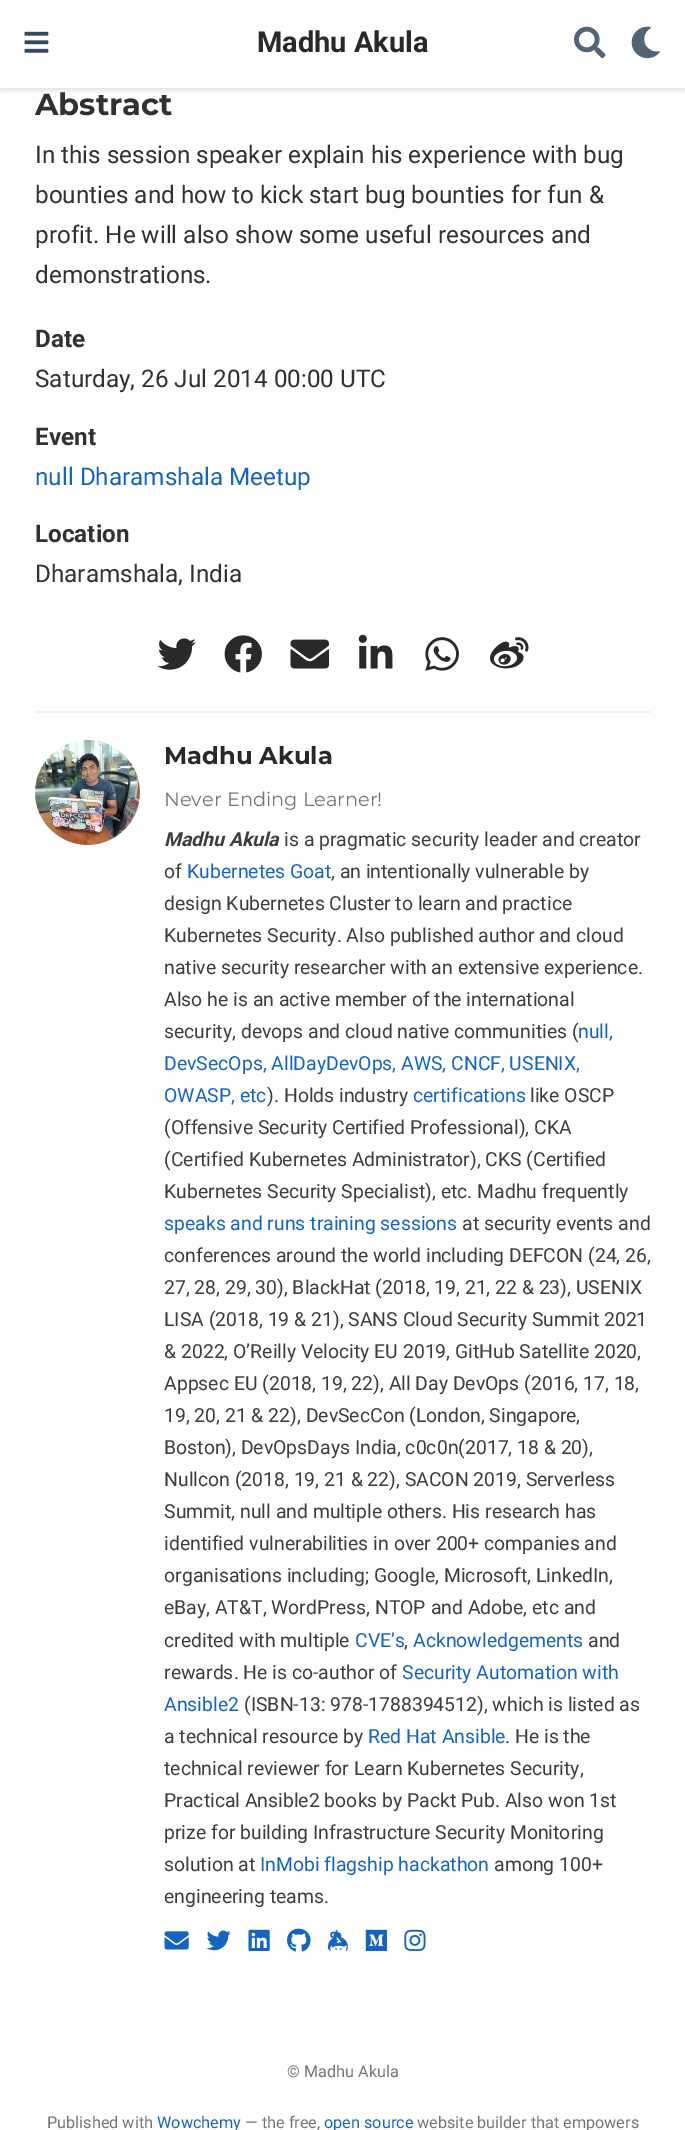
%!PS-Adobe-3.0
%%BoundingBox: 0 0 685 2130
%%LanguageLevel: 3
%%Pages: 1
%%EndComments
%%BeginProlog
/fn { [ exch dup neg 0 0 3 -1 roll 0 0 ] selectfont } def
/tx { moveto show } def
/bx { rectfill } def
/al { dup .setfillconstantalpha .setstrokeconstantalpha } def
/rr { 5 dict begin { /r /h /w /y /x } { exch def } forall
  x r add y moveto x w add y 2 copy h add r arct x w add y h add x 1 index r arct
  x y h add x y r arct x y 2 copy exch w add exch r arct closepath end } def
/sh { 12 dict begin { /a /b /q /h /w /y /x } { exch def } forall gsave /was 0 def
  9 -2 -9 { dup b mul 4 div /e exch def 1 sub .425 mul 2.718 exch exp 1 add a .99 .min exch div /now exch def
    1 1 now sub 1 was sub div sub al /was now def
    w h .min e 2 mul add 0 gt { x e sub y e sub w e 2 mul add h e 2 mul add
      q e add b .6 mul add w h .min 2 div e add .min 0 .max rr fill } if } for grestore end } def
/im { 5 dict begin { /h /w /y /x /name } { exch def } forall
  gsave x y translate w h scale
  w h 8 [w 0 0 h 0 0] name (r) file false 3 colorimage grestore end } def
%%EndProlog
%%BeginSetup
<< /PageSize [685 2130] /PageUsesTransparency true >> setpagedevice
%%EndSetup
%%Page: 1 1
0 .pushpdf14devicefilter
0 2130 translate 1 -1 scale
4 setmiterlimit
1 setgray
0 0 685 2130 bx
0 setgray
0 4 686 87 0 3 0.11 sh
1 setgray
0 0 685 88 bx
(image0.raw) 24 31 25 22 im
/Roboto-Bold 29 fn
0.161 setgray
(Madhu Akula) 257 52 tx
(image1.raw) 574 26 32 33 im
(image2.raw) 631 26 29 33 im
/Montserrat-Bold 30.5 fn
0.192 setgray
(Abstract) 35 115 tx
/Roboto-Regular 24.25 fn
(In this session speaker explain his experience with bug) 35 163 tx
(bounties and how to kick start bug bounties for fun &) 35 203 tx
(profit. He will also show some useful resources and) 35 243 tx
(demonstrations.) 35 283 tx
/Roboto-Bold 24.25 fn
(Date) 35 347 tx
/Roboto-Regular 24.25 fn
(Saturday, 26 Jul 2014 00:00 UTC) 35 387 tx
/Roboto-Bold 24.25 fn
(Event) 35 445 tx
/Roboto-Regular 24.25 fn
0.082 0.396 0.753 setrgbcolor
(null Dharamshala Meetup) 35 485 tx
/Roboto-Bold 24.25 fn
0.192 setgray
(Location) 35 542 tx
/Roboto-Regular 24.25 fn
(Dharamshala, India) 35 582 tx
(image3.raw) 157 638 39 32 im
(image4.raw) 224 635 38 38 im
(image5.raw) 290 639 39 30 im
(image6.raw) 358 634 35 35 im
(image7.raw) 425 637 34 34 im
(image8.raw) 490 637 39 32 im
0.949 setgray
35 711 616 2 bx
(image9.raw) 35 740 105 105 im
/Montserrat-Bold 24.25 fn
0.161 setgray
(Madhu Akula) 164 764 tx
/Montserrat-Regular 19.4 fn
0.459 setgray
(Never Ending Learner!) 164 806 tx
/Roboto-BoldItalic 19.4 fn
0.239 setgray
(Madhu Akula) 164 846 tx
/Roboto-Regular 19.4 fn
(is a pragmatic security leader and creator) 284 846 tx
(of) 164 878 tx
0.082 0.396 0.753 setrgbcolor
(Kubernetes Goat) 187 878 tx
0.239 setgray
(, an intentionally vulnerable by) 331 878 tx
(design Kubernetes Cluster to learn and practice) 164 910 tx
(Kubernetes Security. Also published author and cloud) 164 942 tx
(native security researcher with an extensive experience.) 164 974 tx
(Also he is an active member of the international) 164 1006 tx
(security, devops and cloud native communities \() 164 1038 tx
0.082 0.396 0.753 setrgbcolor
(null,) 578 1038 tx
(DevSecOps, AllDayDevOps, AWS, CNCF, USENIX,) 164 1070 tx
(OWASP, etc) 164 1102 tx
0.239 setgray
(\). Holds industry) 267 1102 tx
0.082 0.396 0.753 setrgbcolor
(certifications) 413 1102 tx
0.239 setgray
(like OSCP) 530 1102 tx
(\(Offensive Security Certified Professional\), CKA) 164 1134 tx
(\(Certified Kubernetes Administrator\), CKS \(Certified) 164 1166 tx
(Kubernetes Security Specialist\), etc. Madhu frequently) 164 1198 tx
0.082 0.396 0.753 setrgbcolor
(speaks and runs training sessions) 164 1230 tx
0.239 setgray
(at security events and) 462 1230 tx
(conferences around the world including DEFCON \(24, 26,) 164 1262 tx
(27, 28, 29, 30\), BlackHat \(2018, 19, 21, 22 & 23\), USENIX) 164 1294 tx
(LISA \(2018, 19 & 21\), SANS Cloud Security Summit 2021) 164 1326 tx
(& 2022, O’Reilly Velocity EU 2019, GitHub Satellite 2020,) 164 1358 tx
(Appsec EU \(2018, 19, 22\), All Day DevOps \(2016, 17, 18,) 164 1390 tx
(19, 20, 21 & 22\), DevSecCon \(London, Singapore,) 164 1422 tx
(Boston\), DevOpsDays India, c0c0n\(2017, 18 & 20\),) 164 1454 tx
(Nullcon \(2018, 19, 21 & 22\), SACON 2019, Serverless) 164 1486 tx
(Summit, null and multiple others. His research has) 164 1518 tx
(identified vulnerabilities in over 200+ companies and) 164 1550 tx
(organisations including; Google, Microsoft, LinkedIn,) 164 1582 tx
(eBay, AT&T, WordPress, NTOP and Adobe, etc and) 164 1614 tx
(credited with multiple) 164 1647 tx
0.082 0.396 0.753 setrgbcolor
(CVE’s) 355 1647 tx
0.239 setgray
(,) 404 1647 tx
0.082 0.396 0.753 setrgbcolor
(Acknowledgements) 413 1647 tx
0.239 setgray
(and) 588 1647 tx
(rewards. He is co-author of) 164 1679 tx
0.082 0.396 0.753 setrgbcolor
(Security Automation with) 402 1679 tx
(Ansible2) 164 1711 tx
0.239 setgray
(\(ISBN-13: 978-1788394512\), which is listed as) 244 1711 tx
(a technical resource by) 164 1743 tx
0.082 0.396 0.753 setrgbcolor
(Red Hat Ansible) 368 1743 tx
0.239 setgray
(. He is the) 505 1743 tx
(technical reviewer for Learn Kubernetes Security,) 164 1775 tx
(Practical Ansible2 books by Packt Pub. Also won 1st) 164 1807 tx
(prize for building Infrastructure Security Monitoring) 164 1839 tx
(solution at) 164 1871 tx
0.082 0.396 0.753 setrgbcolor
(InMobi flagship hackathon) 260 1871 tx
0.239 setgray
(among 100+) 494 1871 tx
(engineering teams.) 164 1903 tx
(image10.raw) 164 1931 25 19 im
(image11.raw) 206 1930 25 21 im
(image12.raw) 248 1929 22 22 im
(image13.raw) 287 1928 24 24 im
(image14.raw) 327 1929 21 22 im
(image15.raw) 365 1929 22 22 im
(image16.raw) 404 1929 22 22 im
/Roboto-Regular 16.25 fn
0.459 setgray
(© Madhu Akula) 287 2077 tx
(Published with) 47 2128 tx
0.082 0.396 0.753 setrgbcolor
(Wowchemy) 157 2128 tx
0.459 setgray
(— the free,) 245 2128 tx
0.082 0.396 0.753 setrgbcolor
(open source) 324 2128 tx
0.459 setgray
(website builder that empowers) 417 2128 tx
.poppdf14devicefilter showpage
%%EOF
